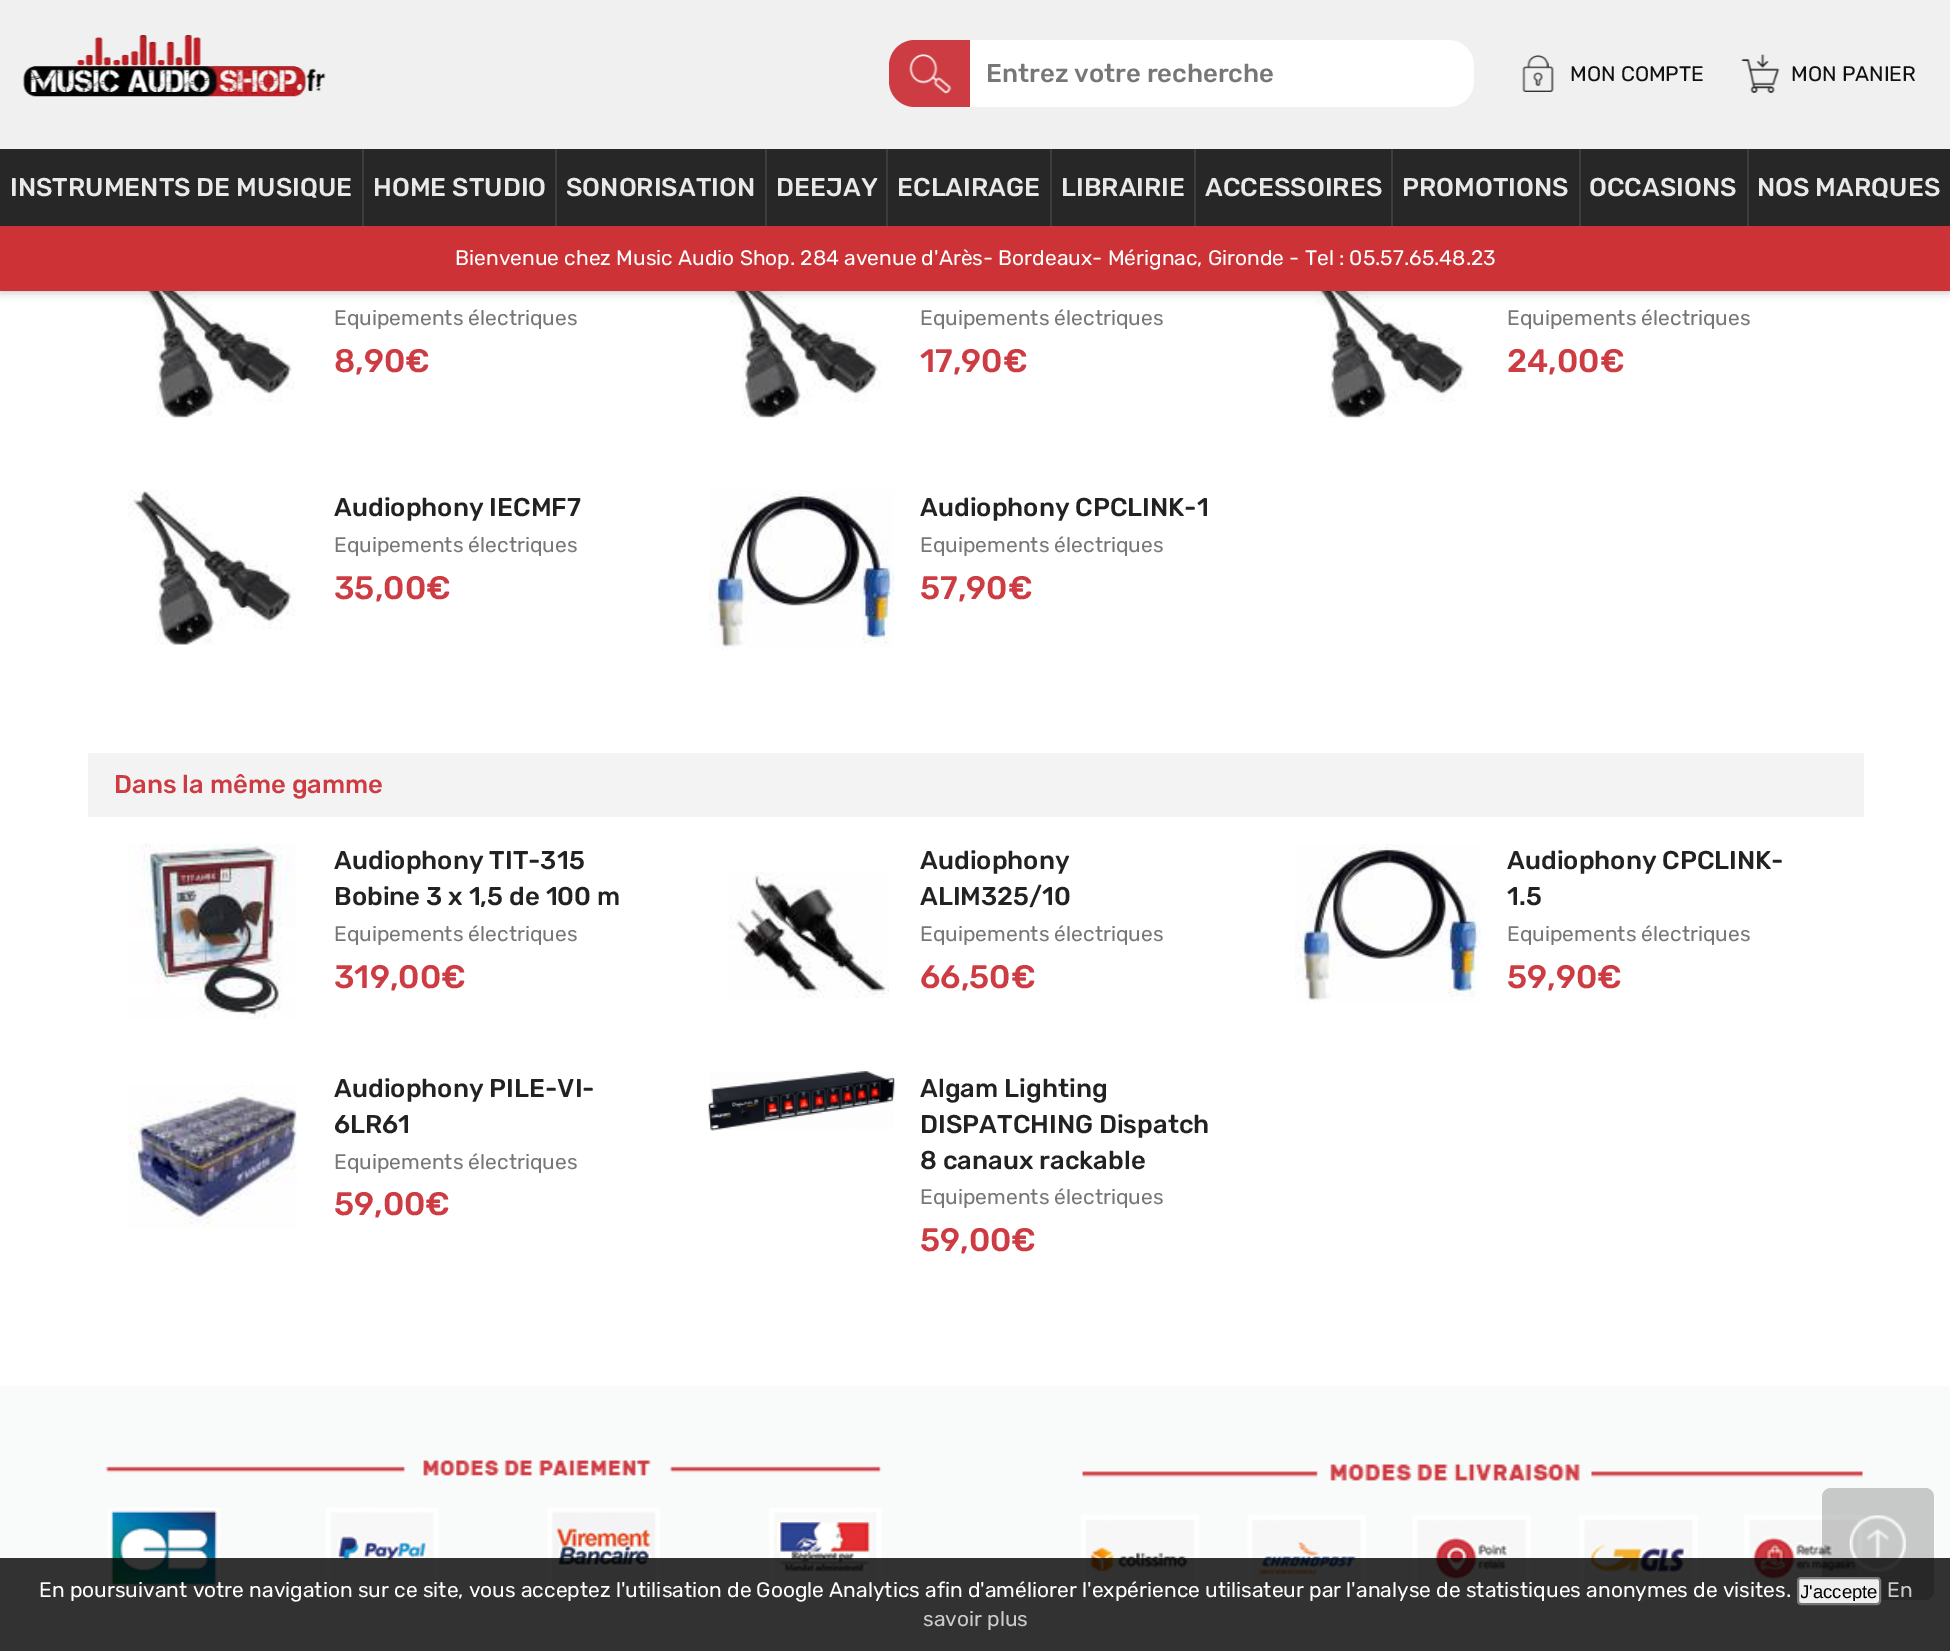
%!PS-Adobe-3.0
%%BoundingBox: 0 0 1950 1651
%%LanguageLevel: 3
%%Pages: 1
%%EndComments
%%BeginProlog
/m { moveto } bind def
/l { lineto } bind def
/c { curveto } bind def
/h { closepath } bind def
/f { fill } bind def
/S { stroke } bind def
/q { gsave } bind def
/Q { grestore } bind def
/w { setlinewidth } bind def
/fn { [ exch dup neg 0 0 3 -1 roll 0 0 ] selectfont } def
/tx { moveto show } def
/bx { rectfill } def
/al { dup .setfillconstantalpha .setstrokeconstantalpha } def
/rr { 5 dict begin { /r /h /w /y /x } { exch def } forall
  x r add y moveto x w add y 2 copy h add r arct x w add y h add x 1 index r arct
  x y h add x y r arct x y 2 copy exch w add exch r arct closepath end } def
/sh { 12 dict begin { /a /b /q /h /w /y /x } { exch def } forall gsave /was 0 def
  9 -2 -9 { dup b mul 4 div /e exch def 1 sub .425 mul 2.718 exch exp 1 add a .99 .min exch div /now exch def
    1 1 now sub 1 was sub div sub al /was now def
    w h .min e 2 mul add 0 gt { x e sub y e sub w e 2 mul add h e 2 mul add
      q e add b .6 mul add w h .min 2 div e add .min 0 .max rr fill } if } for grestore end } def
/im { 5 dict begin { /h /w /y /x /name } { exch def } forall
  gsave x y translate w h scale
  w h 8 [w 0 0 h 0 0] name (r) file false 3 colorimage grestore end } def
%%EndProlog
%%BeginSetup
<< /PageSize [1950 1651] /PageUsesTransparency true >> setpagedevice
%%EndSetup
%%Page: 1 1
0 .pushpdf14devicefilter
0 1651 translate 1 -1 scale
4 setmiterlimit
1 setgray
0 0 1950 1651 bx
(image4.raw) 128 291 167 127 im
(image5.raw) 714 291 168 127 im
(image6.raw) 1300 291 168 127 im
0 setgray
0 -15 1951 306 0 5 0.3 sh
0.941 setgray
0 0 1950 149 bx
(image0.raw) 23 35 303 62 im
0.804 0.235 0.263 setrgbcolor
915 40 m 970 40 l 970 107 l 915 107 l 900.5 107 889 95.5 889 81 c 889 66 l 889 51.5 900.5 40 915 40 c h f
(image1.raw) 909 53 43 41 im
1 setgray
970 40 m 1448 40 l 1462.5 40 1474 51.5 1474 66 c 1474 81 l 1474 95.5 1462.5 107 1448 107 c 970 107 l h f
/Rubik-Medium 25.7 fn
0.467 setgray
(Entrez votre recherche) 986 82 tx
(image2.raw) 1522 55 32 37 im
/Rubik-Regular 21 fn
0.067 setgray
(MON COMPTE) 1570 81 tx
(image3.raw) 1741 54 39 39 im
(MON PANIER) 1791 81 tx
0.153 setgray
0 149 1950 77 bx
0.239 setgray
362 149 2 77 bx
/Rubik-Medium 25.7 fn
0.914 setgray
(INSTRUMENTS DE MUSIQUE) 10 196 tx
0.239 setgray
555 149 2 77 bx
0.914 setgray
(HOME STUDIO) 373 196 tx
0.239 setgray
765 149 2 77 bx
0.914 setgray
(SONORISATION) 566 196 tx
0.239 setgray
886 149 2 77 bx
0.914 setgray
(DEEJAY) 776 196 tx
0.239 setgray
1050 149 2 77 bx
0.914 setgray
(ECLAIRAGE) 897 196 tx
0.239 setgray
1194 149 2 77 bx
0.914 setgray
(LIBRAIRIE) 1061 196 tx
0.239 setgray
1391 149 2 77 bx
0.914 setgray
(ACCESSOIRES) 1205 196 tx
0.239 setgray
1579 149 2 77 bx
0.914 setgray
(PROMOTIONS) 1402 196 tx
0.239 setgray
1747 149 2 77 bx
0.914 setgray
(OCCASIONS) 1589 196 tx
(NOS MARQUES) 1757 196 tx
0.804 0.196 0.212 setrgbcolor
0 226 1950 65 bx
/Rubik-Regular 21 fn
1 setgray
(Bienvenue chez Music Audio Shop. 284 avenue d'Arès- Bordeaux- Mérignac, Gironde - Tel : 05.57.65.48.23) 455 265 tx
0.467 setgray
(Equipements électriques) 334 325 tx
/Rubik-Medium 32.5 fn
0.804 0.235 0.263 setrgbcolor
(8,90€) 334 372 tx
/Rubik-Regular 21 fn
0.467 setgray
(Equipements électriques) 920 325 tx
/Rubik-Medium 32.5 fn
0.804 0.235 0.263 setrgbcolor
(17,90€) 920 372 tx
/Rubik-Regular 21 fn
0.467 setgray
(Equipements électriques) 1507 325 tx
/Rubik-Medium 32.5 fn
0.804 0.235 0.263 setrgbcolor
(24,00€) 1507 372 tx
(image7.raw) 128 490 168 155 im
/Rubik-Medium 25.7 fn
0.133 setgray
(Audiophony IECMF7) 334 516 tx
/Rubik-Regular 21 fn
0.467 setgray
(Equipements électriques) 334 552 tx
/Rubik-Medium 32.5 fn
0.804 0.235 0.263 setrgbcolor
(35,00€) 334 599 tx
(image8.raw) 709 490 186 160 im
/Rubik-Medium 25.7 fn
0.133 setgray
(Audiophony CPCLINK-1) 920 516 tx
/Rubik-Regular 21 fn
0.467 setgray
(Equipements électriques) 920 552 tx
/Rubik-Medium 32.5 fn
0.804 0.235 0.263 setrgbcolor
(57,90€) 920 599 tx
0.953 setgray
88 753 1776 64 bx
/Rubik-Medium 25.7 fn
0.804 0.235 0.263 setrgbcolor
(Dans la même gamme) 114 793 tx
(image9.raw) 128 843 168 176 im
0.133 setgray
(Audiophony TIT-315) 334 869 tx
(Bobine 3 x 1,5 de 100 m) 334 905 tx
/Rubik-Regular 21 fn
0.467 setgray
(Equipements électriques) 334 941 tx
/Rubik-Medium 32.5 fn
0.804 0.235 0.263 setrgbcolor
(319,00€) 334 988 tx
(image10.raw) 728 872 161 126 im
/Rubik-Medium 25.7 fn
0.133 setgray
(Audiophony) 920 869 tx
(ALIM325/10) 920 905 tx
/Rubik-Regular 21 fn
0.467 setgray
(Equipements électriques) 920 941 tx
/Rubik-Medium 32.5 fn
0.804 0.235 0.263 setrgbcolor
(66,50€) 920 988 tx
(image11.raw) 1295 844 186 159 im
/Rubik-Medium 25.7 fn
0.133 setgray
(Audiophony CPCLINK-) 1507 869 tx
(1.5) 1507 905 tx
/Rubik-Regular 21 fn
0.467 setgray
(Equipements électriques) 1507 941 tx
/Rubik-Medium 32.5 fn
0.804 0.235 0.263 setrgbcolor
(59,90€) 1507 988 tx
(image12.raw) 128 1085 169 144 im
/Rubik-Medium 25.7 fn
0.133 setgray
(Audiophony PILE-VI-) 334 1097 tx
(6LR61) 334 1133 tx
/Rubik-Regular 21 fn
0.467 setgray
(Equipements électriques) 334 1169 tx
/Rubik-Medium 32.5 fn
0.804 0.235 0.263 setrgbcolor
(59,00€) 334 1215 tx
(image13.raw) 708 1071 187 60 im
/Rubik-Medium 25.7 fn
0.133 setgray
(Algam Lighting) 920 1097 tx
(DISPATCHING Dispatch) 920 1133 tx
(8 canaux rackable) 920 1169 tx
/Rubik-Regular 21 fn
0.467 setgray
(Equipements électriques) 920 1204 tx
/Rubik-Medium 32.5 fn
0.804 0.235 0.263 setrgbcolor
(59,00€) 920 1251 tx
0.976 0.984 0.98 setrgbcolor
0 1386 1950 265 bx
(image14.raw) 105 1460 777 129 im
(image15.raw) 1081 1464 782 138 im
0.2 al
0 setgray
1822 1488 112 112 9 rr f
1 al
(image16.raw) 1849 1515 57 57 im
0.8 al
0 1558 1950 93 bx
/Rubik-Regular 21 fn
1 al
1 setgray
(En poursuivant votre navigation sur ce site, vous acceptez l'utilisation de Google Analytics afin d'améliorer l'expérience utilisateur par l'analyse de statistiques anonymes de visites.) 39 1597 tx
0.937 setgray
1798 1578 82 26 3 rr q f Q
0.463 setgray
2 w
S
q
1801 1580 77 21 rectclip
/LiberationSans-Regular 18.5 fn
0 setgray
(J'accepte) 1800 1598 tx
Q
0.8 setgray
(En) 1887 1597 tx
(savoir plus) 923 1626 tx
.poppdf14devicefilter showpage
%%EOF
